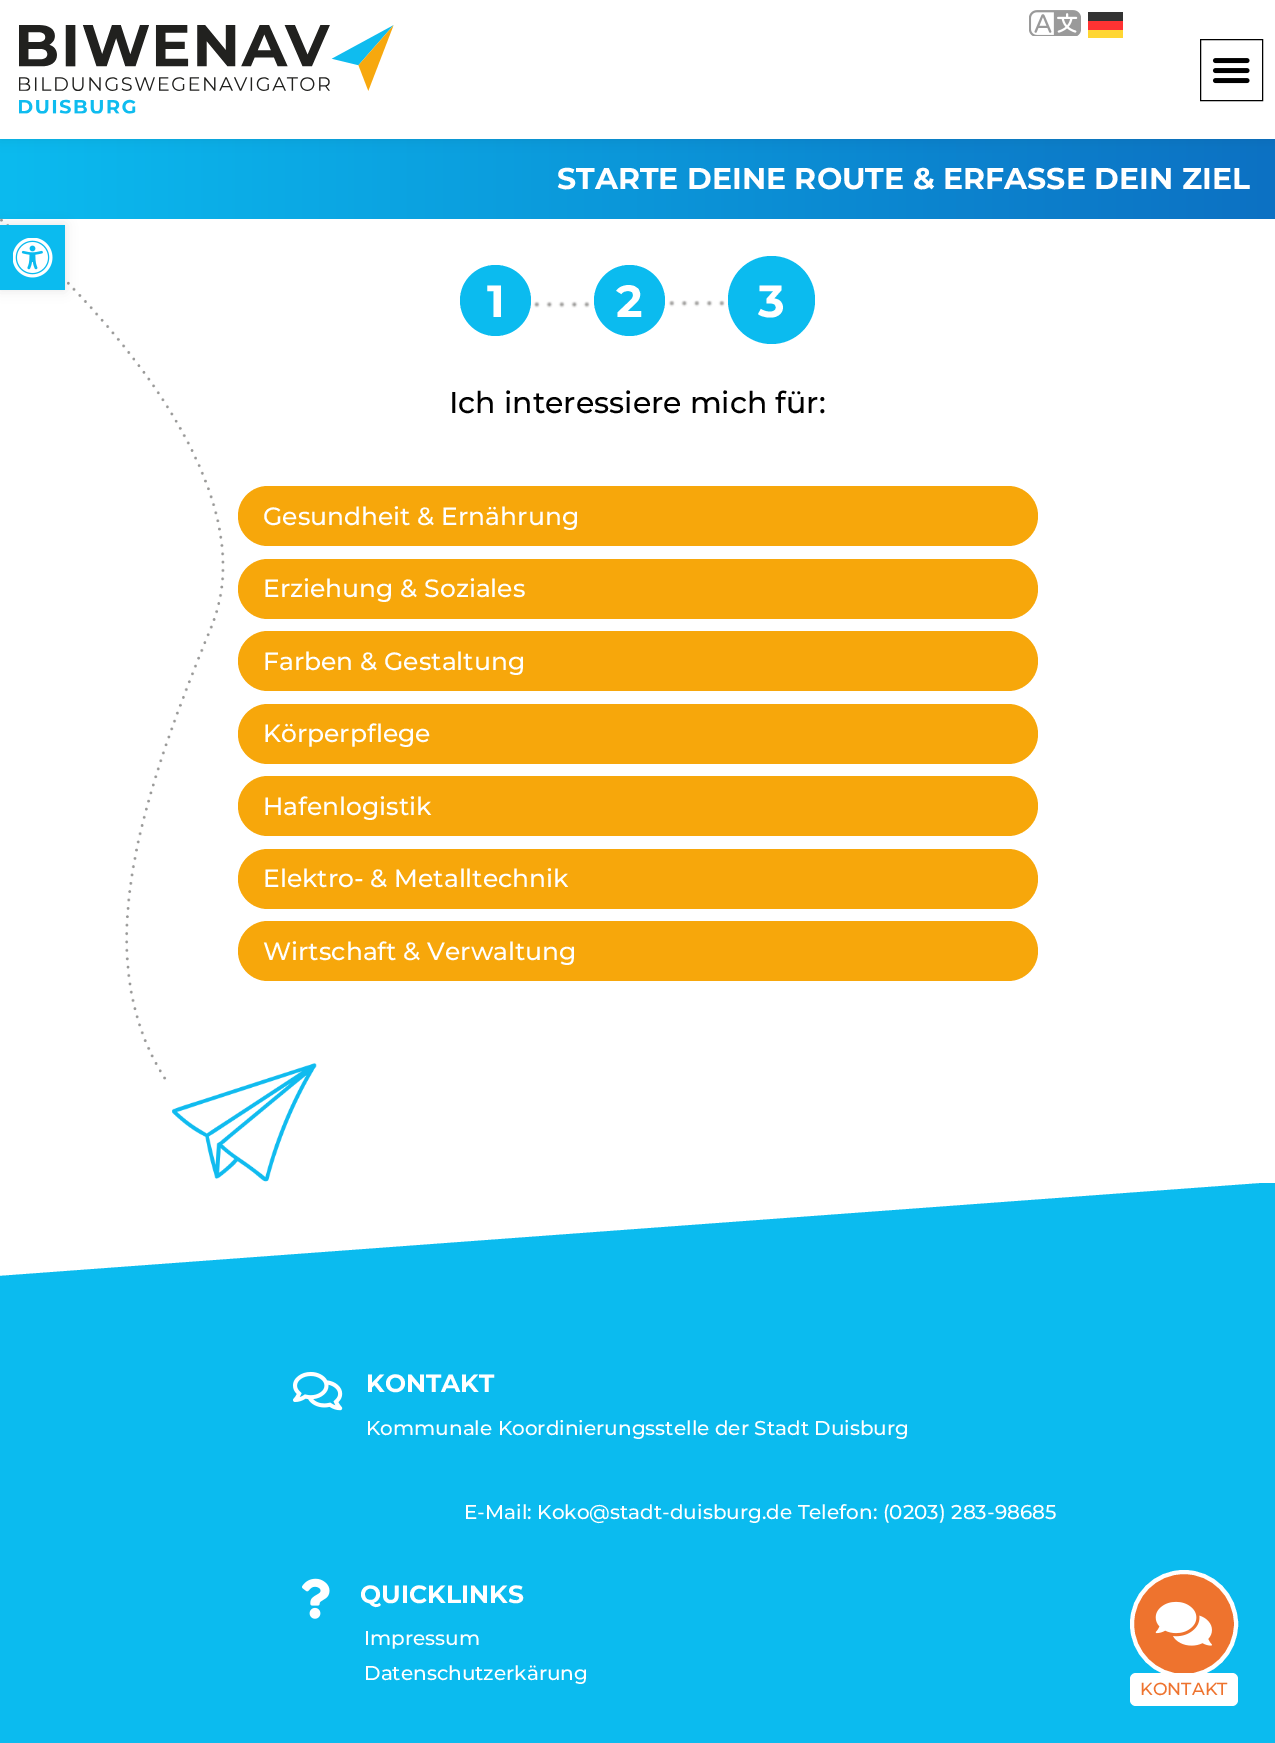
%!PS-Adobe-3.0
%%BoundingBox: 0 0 1275 1743
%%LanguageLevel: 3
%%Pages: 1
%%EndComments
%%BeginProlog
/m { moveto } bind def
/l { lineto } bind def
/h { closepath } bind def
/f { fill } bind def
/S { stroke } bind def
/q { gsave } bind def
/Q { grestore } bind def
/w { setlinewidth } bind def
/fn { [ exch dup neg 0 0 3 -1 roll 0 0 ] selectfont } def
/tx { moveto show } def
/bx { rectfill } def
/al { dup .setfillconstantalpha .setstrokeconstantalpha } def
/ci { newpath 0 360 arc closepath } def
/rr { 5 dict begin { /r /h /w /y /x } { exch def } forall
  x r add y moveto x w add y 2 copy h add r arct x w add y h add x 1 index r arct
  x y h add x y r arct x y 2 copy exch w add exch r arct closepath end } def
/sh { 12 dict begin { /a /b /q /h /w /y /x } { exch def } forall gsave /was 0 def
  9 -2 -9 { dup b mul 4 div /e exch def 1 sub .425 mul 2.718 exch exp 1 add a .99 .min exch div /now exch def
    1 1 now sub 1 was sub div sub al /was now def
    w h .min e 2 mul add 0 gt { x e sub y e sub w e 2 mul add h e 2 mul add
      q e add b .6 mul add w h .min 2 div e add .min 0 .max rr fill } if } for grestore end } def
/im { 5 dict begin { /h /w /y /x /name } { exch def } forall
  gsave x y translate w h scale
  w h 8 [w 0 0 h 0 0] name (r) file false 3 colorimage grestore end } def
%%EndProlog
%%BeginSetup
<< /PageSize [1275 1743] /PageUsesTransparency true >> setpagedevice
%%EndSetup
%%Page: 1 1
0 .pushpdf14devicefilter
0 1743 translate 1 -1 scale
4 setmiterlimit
1 setgray
0 0 1275 1743 bx
q 0 139 m 1275 139 l 1275 219 l 0 219 l h clip newpath
<< /ShadingType 2 /ColorSpace /DeviceRGB /Coords [0 179 1275 179] /Extend [true true] /Function << /FunctionType 2 /Domain [0 1] /C0 [0.043 0.733 0.937] /C1 [0.047 0.443 0.765] /N 1 >> >> shfill Q
0 setgray
0 0 1275 139 0 6 0.09 sh
1 setgray
0 0 1275 139 bx
(image0.raw) 19 25 375 89 im
0 setgray
1200.5 39.5 62 61 rectstroke
(image1.raw) 1212 58 38 26 im
(image2.raw) 1029 10 52 26 im
0.2 setgray
1088 12 35 9 bx
1 0.2 0.2 setrgbcolor
1088 21 35 9 bx
1 0.839 0.2 setrgbcolor
1088 30 35 8 bx
(image4.raw) 0 218 317 964 im
0 setgray
0 225 65 65 0 6 0.1 sh
0.043 0.733 0.937 setrgbcolor
0 225 65 65 bx
(image3.raw) 13 238 40 40 im
/Montserrat-Bold 30 fn
1 setgray
(STARTE DEINE ROUTE & ERFASSE DEIN ZIEL) 557 189 tx
(image5.raw) 530 302 1 5 im
(image6.raw) 530 302 1 5 im
0.043 0.733 0.937 setrgbcolor
495.5 300.5 35.5 ci f
/Montserrat-Bold 45 fn
1 setgray
(1) 487 317 tx
(image7.raw) 533 301 132 7 im
(image8.raw) 664 302 1 5 im
0.043 0.733 0.937 setrgbcolor
629.5 300.5 35.5 ci f
1 setgray
(2) 616 317 tx
(image9.raw) 668 300 57 7 im
0.043 0.733 0.937 setrgbcolor
728 256 87 88 43.5 rr f
1 setgray
(3) 758 317 tx
/Montserrat-Medium 30 fn
0 setgray
(Ich interessiere mich für:) 449 413 tx
0.969 0.655 0.043 setrgbcolor
238 486 800 60 30 rr f
/Montserrat-Medium 25 fn
1 setgray
(Gesundheit & Ernährung) 263 525 tx
0.969 0.655 0.043 setrgbcolor
238 559 800 60 30 rr f
1 setgray
(Erziehung & Soziales) 263 597 tx
0.969 0.655 0.043 setrgbcolor
238 631 800 60 30 rr f
1 setgray
(Farben & Gestaltung) 263 670 tx
0.969 0.655 0.043 setrgbcolor
238 704 800 60 30 rr f
1 setgray
(Körperpflege) 263 742 tx
0.969 0.655 0.043 setrgbcolor
238 776 800 60 30 rr f
1 setgray
(Hafenlogistik) 263 815 tx
0.969 0.655 0.043 setrgbcolor
238 849 800 60 30 rr f
1 setgray
(Elektro- & Metalltechnik) 263 887 tx
0.969 0.655 0.043 setrgbcolor
238 921 800 60 30 rr f
1 setgray
(Wirtschaft & Verwaltung) 263 960 tx
q
0 1183 1275 100 rectclip
0.043 0.733 0.937 setrgbcolor
-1 1276 m -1 1282 l 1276 1282 l 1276 1182 l h f
Q
0.043 0.733 0.937 setrgbcolor
0 1282 1275 461 bx
(image10.raw) 293 1371 50 40 im
/Montserrat-Bold 25 fn
1 setgray
(KONTAKT) 366 1392 tx
/Montserrat-Medium 20 fn
(Kommunale Koordinierungsstelle der Stadt Duisburg) 366 1435 tx
(E-Mail: Koko@stadt-duisburg.de Telefon: \(0203\) 283-98685) 464 1519 tx
(image11.raw) 302 1578 28 41 im
/Montserrat-Bold 25 fn
(QUICKLINKS) 360 1603 tx
/Montserrat-Medium 20 fn
(Impressum) 364 1645 tx
(Datenschutzerkärung) 364 1680 tx
0.933 0.451 0.18 setrgbcolor
1184 1624 52 ci q f Q
1 setgray
4 w
S
(image12.raw) 1155 1601 57 45 im
1130 1673 108 33 6 rr f
/Montserrat-Medium 17.5 fn
0.933 0.451 0.18 setrgbcolor
(KONTAKT) 1140 1695 tx
.poppdf14devicefilter showpage
%%EOF
